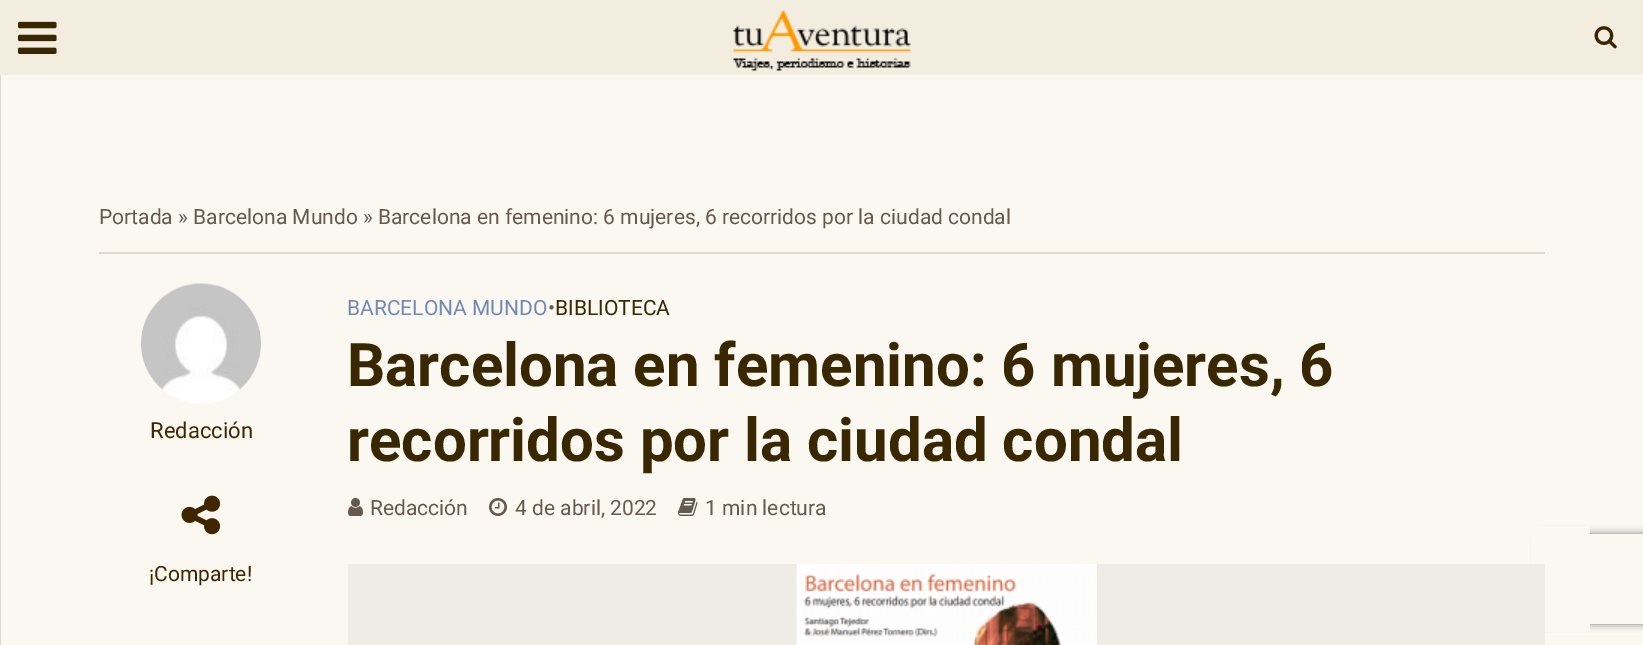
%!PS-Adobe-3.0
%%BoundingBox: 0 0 1643 645
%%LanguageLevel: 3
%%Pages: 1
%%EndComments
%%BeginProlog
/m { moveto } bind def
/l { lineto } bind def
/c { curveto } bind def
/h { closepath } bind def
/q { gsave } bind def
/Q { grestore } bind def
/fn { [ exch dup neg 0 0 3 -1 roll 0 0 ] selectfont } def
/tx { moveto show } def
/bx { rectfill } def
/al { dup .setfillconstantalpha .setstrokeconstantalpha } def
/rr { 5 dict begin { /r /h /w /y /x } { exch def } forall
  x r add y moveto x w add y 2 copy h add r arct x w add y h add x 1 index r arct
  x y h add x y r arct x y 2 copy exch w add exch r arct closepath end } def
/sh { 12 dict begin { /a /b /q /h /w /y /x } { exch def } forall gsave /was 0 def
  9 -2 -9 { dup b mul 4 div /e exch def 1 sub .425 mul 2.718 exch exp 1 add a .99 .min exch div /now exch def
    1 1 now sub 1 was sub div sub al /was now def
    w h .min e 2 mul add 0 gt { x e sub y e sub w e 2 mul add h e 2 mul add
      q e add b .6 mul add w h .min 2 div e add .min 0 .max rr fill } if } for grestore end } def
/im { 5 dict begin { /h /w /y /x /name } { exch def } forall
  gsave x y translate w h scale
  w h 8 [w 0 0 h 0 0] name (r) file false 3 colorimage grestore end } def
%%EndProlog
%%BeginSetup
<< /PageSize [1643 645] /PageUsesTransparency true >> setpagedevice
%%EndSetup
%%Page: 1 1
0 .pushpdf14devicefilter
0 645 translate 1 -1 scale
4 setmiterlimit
0.984 0.973 0.945 setrgbcolor
0 0 1643 645 bx
0.949 0.929 0.875 setrgbcolor
0 0 1643 75 bx
(image0.raw) 18 21 39 33 im
(image1.raw) 733 10 178 61 im
(image2.raw) 1594 26 23 23 im
0.871 0.851 0.804 setrgbcolor
0 75 1 570 bx
q
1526 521 m 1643 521 l 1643 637 l 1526 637 l h 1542 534 m 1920 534 l 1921.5 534 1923 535.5 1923 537 c 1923 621 l 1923 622.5 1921.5 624 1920 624 c 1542 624 l 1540.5 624 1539 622.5 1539 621 c 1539 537 l 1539 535.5 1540.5 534 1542 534 c h eoclip newpath
0.502 setgray
1539 534 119 90 3 4 1 sh
Q
0.984 0.973 0.945 setrgbcolor
1531 526 59 106 bx
0.875 0.851 0.804 setrgbcolor
99 252 1446 2 bx
/Roboto-Regular 21 fn
0.4 0.349 0.302 setrgbcolor
(Portada » Barcelona Mundo » Barcelona en femenino: 6 mujeres, 6 recorridos por la ciudad condal) 99 224 tx
(image3.raw) 141 283 120 121 im
/Roboto-Regular 22 fn
0.251 0.149 0 setrgbcolor
(Redacción) 150 438 tx
(image4.raw) 181 495 40 40 im
/Roboto-Regular 21 fn
(¡Comparte!) 149 581 tx
0.439 0.541 0.71 setrgbcolor
(BARCELONA MUNDO) 347 315 tx
0.4 0.349 0.302 setrgbcolor
(•) 548 315 tx
0.22 0.153 0 setrgbcolor
(BIBLIOTECA) 555 315 tx
/Roboto-Bold 60 fn
(Barcelona en femenino: 6 mujeres, 6) 347 386 tx
(recorridos por la ciudad condal) 347 461 tx
(image5.raw) 348 498 15 18 im
/Roboto-Regular 21 fn
0.4 0.349 0.302 setrgbcolor
(Redacción) 370 515 tx
(image6.raw) 489 498 18 18 im
(4 de abril, 2022) 515 515 tx
(image7.raw) 678 498 20 18 im
(1 min lectura) 705 515 tx
0.937 0.925 0.898 setrgbcolor
348 564 1197 81 bx
(image8.raw) 796 564 301 81 im
.poppdf14devicefilter showpage
%%EOF
